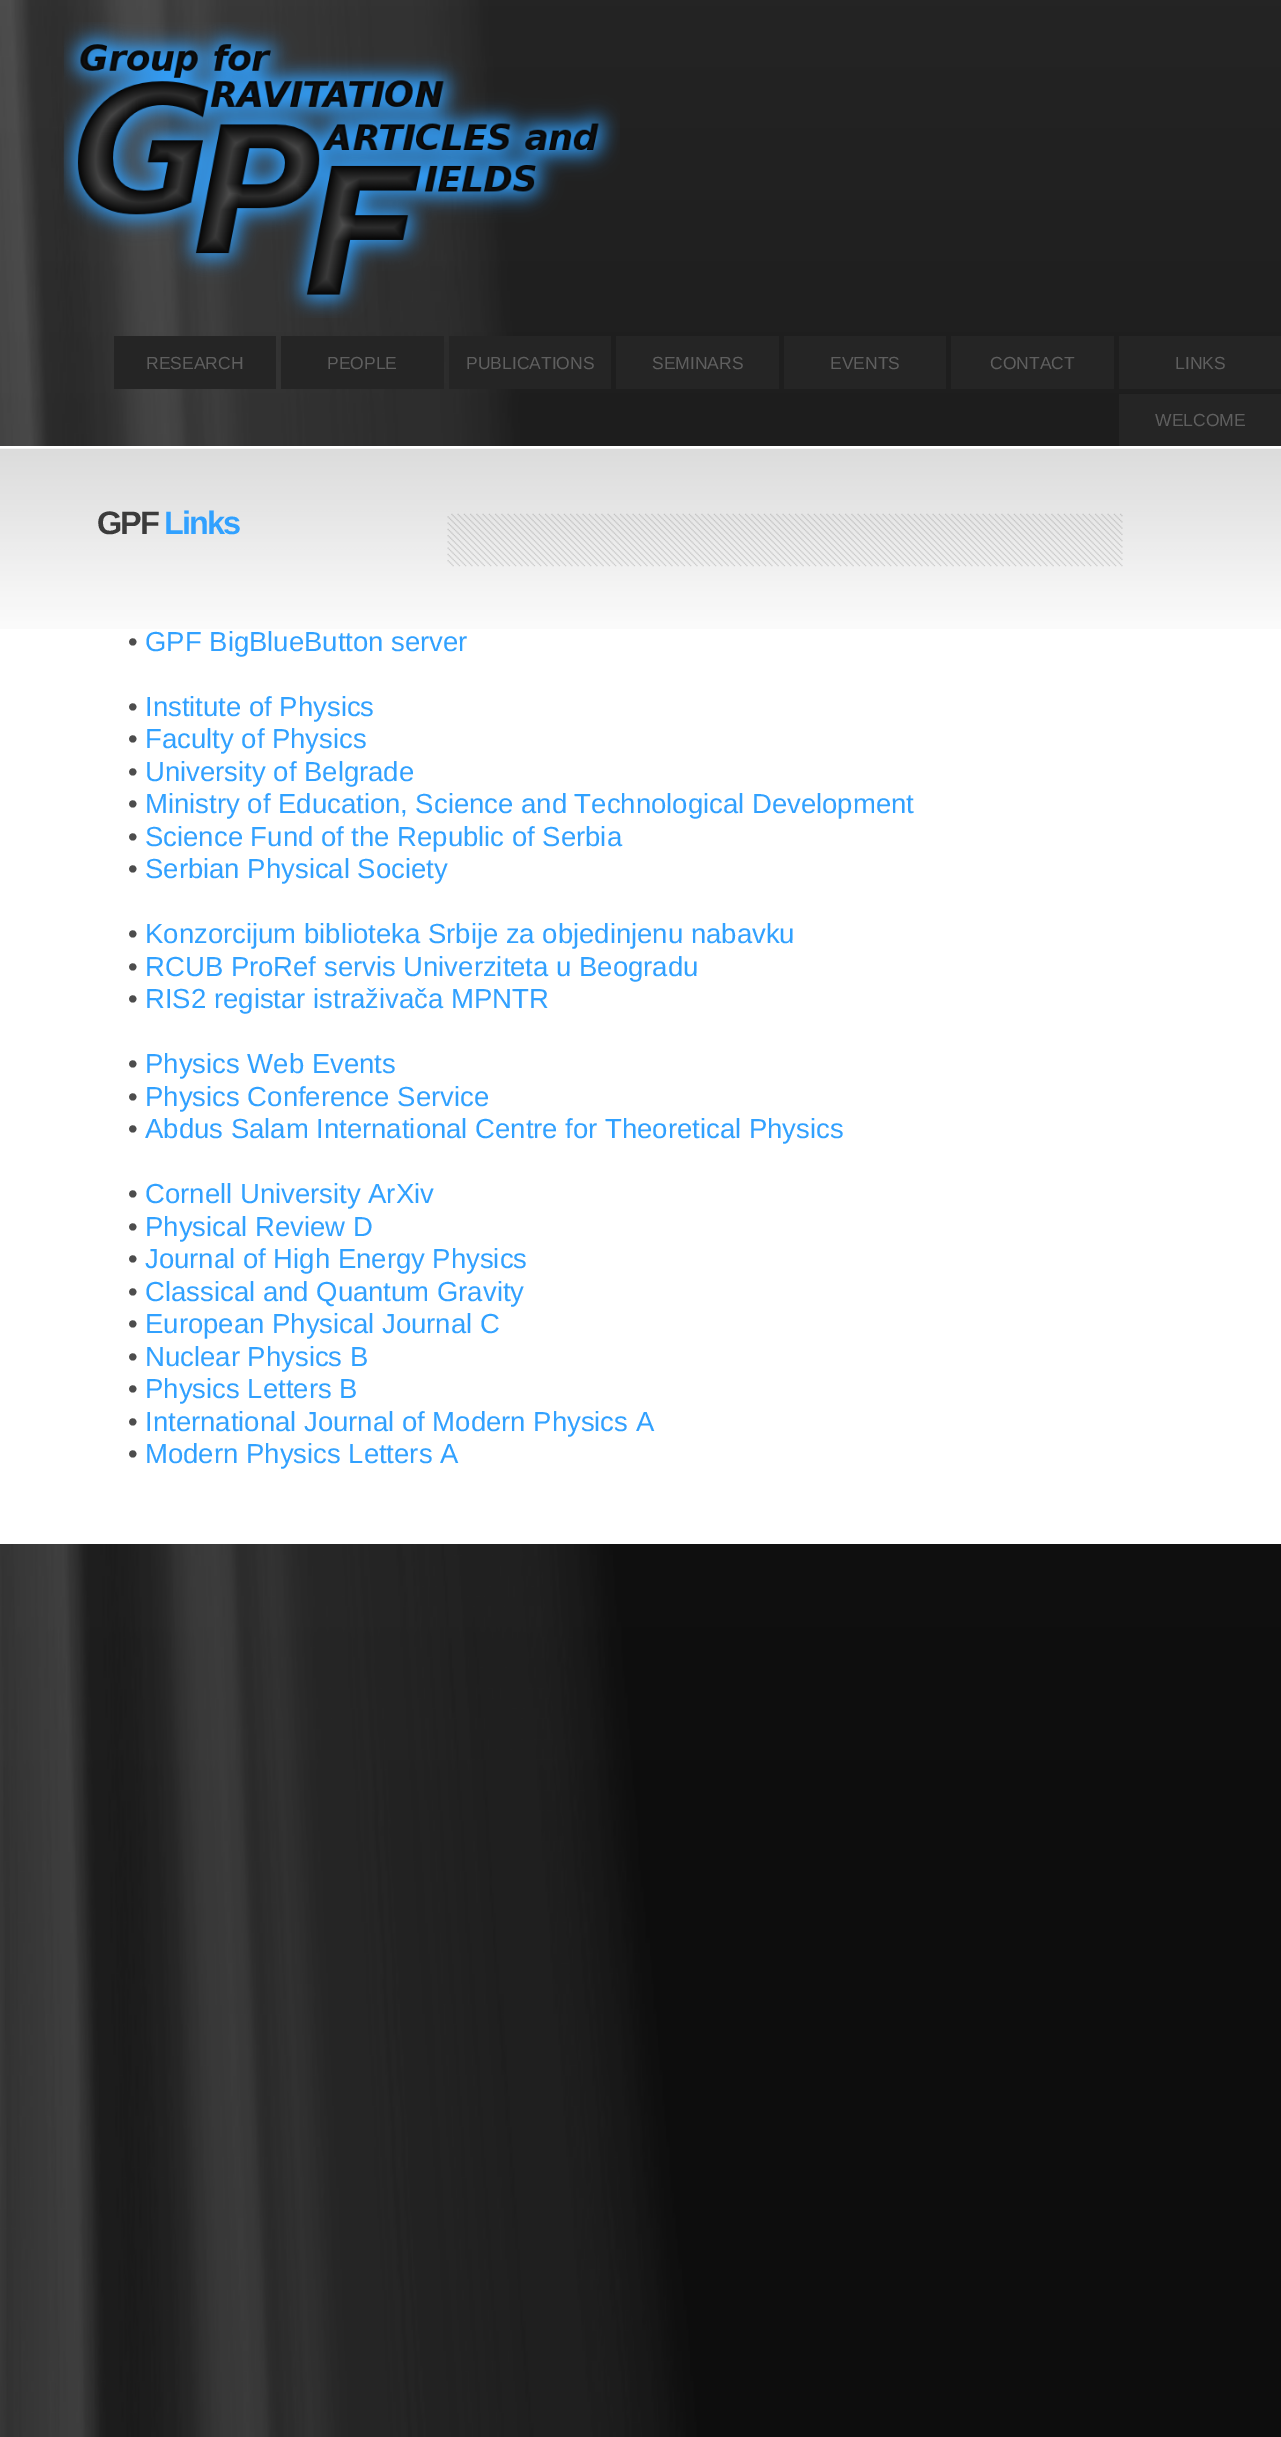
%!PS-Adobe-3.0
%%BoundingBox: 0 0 1281 2437
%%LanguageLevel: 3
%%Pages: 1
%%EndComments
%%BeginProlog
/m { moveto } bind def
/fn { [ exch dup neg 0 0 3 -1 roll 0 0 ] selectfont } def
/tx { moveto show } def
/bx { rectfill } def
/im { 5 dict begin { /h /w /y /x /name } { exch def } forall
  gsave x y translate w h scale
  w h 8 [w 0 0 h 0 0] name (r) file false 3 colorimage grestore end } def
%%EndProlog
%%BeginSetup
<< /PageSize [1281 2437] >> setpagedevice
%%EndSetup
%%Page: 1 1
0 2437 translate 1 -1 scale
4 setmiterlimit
1 setgray
0 0 1281 2437 bx
(image0.raw) 0 0 1281 2437 im
(image1.raw) 63 22 557 296 im
0.145 setgray
114 336 162 53 bx
/LiberationSans-Regular 17.5 fn
0.373 setgray
(RESEARCH) 146 369 tx
0.145 setgray
281 336 163 53 bx
0.373 setgray
(PEOPLE) 327 369 tx
0.145 setgray
449 336 162 53 bx
0.373 setgray
(PUBLICATIONS) 466 369 tx
0.145 setgray
616 336 163 53 bx
0.373 setgray
(SEMINARS) 652 369 tx
0.145 setgray
784 336 162 53 bx
0.373 setgray
(EVENTS) 830 369 tx
0.145 setgray
951 336 163 53 bx
0.373 setgray
(CONTACT) 990 369 tx
0.145 setgray
1119 336 162 53 bx
0.373 setgray
(LINKS) 1175 369 tx
0.145 setgray
1119 394 162 52 bx
0.373 setgray
(WELCOME) 1155 426 tx
1 setgray
0 446 1281 1098 bx
(image2.raw) 0 448 1281 181 im
(image3.raw) 447 513 676 54 im
/LiberationSans-Bold 32.5 fn
0.231 setgray
97 534 m -2 0 (GPF) ashow
0.192 0.631 1 setrgbcolor
164 534 m -2 0 (Links) ashow
/LiberationSans-Regular 27.5 fn
0.302 setgray
(•) 128 651 tx
0.192 0.631 1 setrgbcolor
(GPF BigBlueButton server) 145 651 tx
0.302 setgray
(•) 128 716 tx
0.192 0.631 1 setrgbcolor
(Institute of Physics) 145 716 tx
0.302 setgray
(•) 128 748 tx
0.192 0.631 1 setrgbcolor
(Faculty of Physics) 145 748 tx
0.302 setgray
(•) 128 781 tx
0.192 0.631 1 setrgbcolor
(University of Belgrade) 145 781 tx
0.302 setgray
(•) 128 813 tx
0.192 0.631 1 setrgbcolor
(Ministry of Education, Science and Technological Development) 145 813 tx
0.302 setgray
(•) 128 846 tx
0.192 0.631 1 setrgbcolor
(Science Fund of the Republic of Serbia) 145 846 tx
0.302 setgray
(•) 128 878 tx
0.192 0.631 1 setrgbcolor
(Serbian Physical Society) 145 878 tx
0.302 setgray
(•) 128 943 tx
0.192 0.631 1 setrgbcolor
(Konzorcijum biblioteka Srbije za objedinjenu nabavku) 145 943 tx
0.302 setgray
(•) 128 976 tx
0.192 0.631 1 setrgbcolor
(RCUB ProRef servis Univerziteta u Beogradu) 145 976 tx
0.302 setgray
(•) 128 1008 tx
0.192 0.631 1 setrgbcolor
(RIS2 registar istraživača MPNTR) 145 1008 tx
0.302 setgray
(•) 128 1073 tx
0.192 0.631 1 setrgbcolor
(Physics Web Events) 145 1073 tx
0.302 setgray
(•) 128 1106 tx
0.192 0.631 1 setrgbcolor
(Physics Conference Service) 145 1106 tx
0.302 setgray
(•) 128 1138 tx
0.192 0.631 1 setrgbcolor
(Abdus Salam International Centre for Theoretical Physics) 145 1138 tx
0.302 setgray
(•) 128 1203 tx
0.192 0.631 1 setrgbcolor
(Cornell University ArXiv) 145 1203 tx
0.302 setgray
(•) 128 1236 tx
0.192 0.631 1 setrgbcolor
(Physical Review D) 145 1236 tx
0.302 setgray
(•) 128 1268 tx
0.192 0.631 1 setrgbcolor
(Journal of High Energy Physics) 145 1268 tx
0.302 setgray
(•) 128 1301 tx
0.192 0.631 1 setrgbcolor
(Classical and Quantum Gravity) 145 1301 tx
0.302 setgray
(•) 128 1333 tx
0.192 0.631 1 setrgbcolor
(European Physical Journal C) 145 1333 tx
0.302 setgray
(•) 128 1366 tx
0.192 0.631 1 setrgbcolor
(Nuclear Physics B) 145 1366 tx
0.302 setgray
(•) 128 1398 tx
0.192 0.631 1 setrgbcolor
(Physics Letters B) 145 1398 tx
0.302 setgray
(•) 128 1431 tx
0.192 0.631 1 setrgbcolor
(International Journal of Modern Physics A) 145 1431 tx
0.302 setgray
(•) 128 1463 tx
0.192 0.631 1 setrgbcolor
(Modern Physics Letters A) 145 1463 tx
showpage
%%EOF
